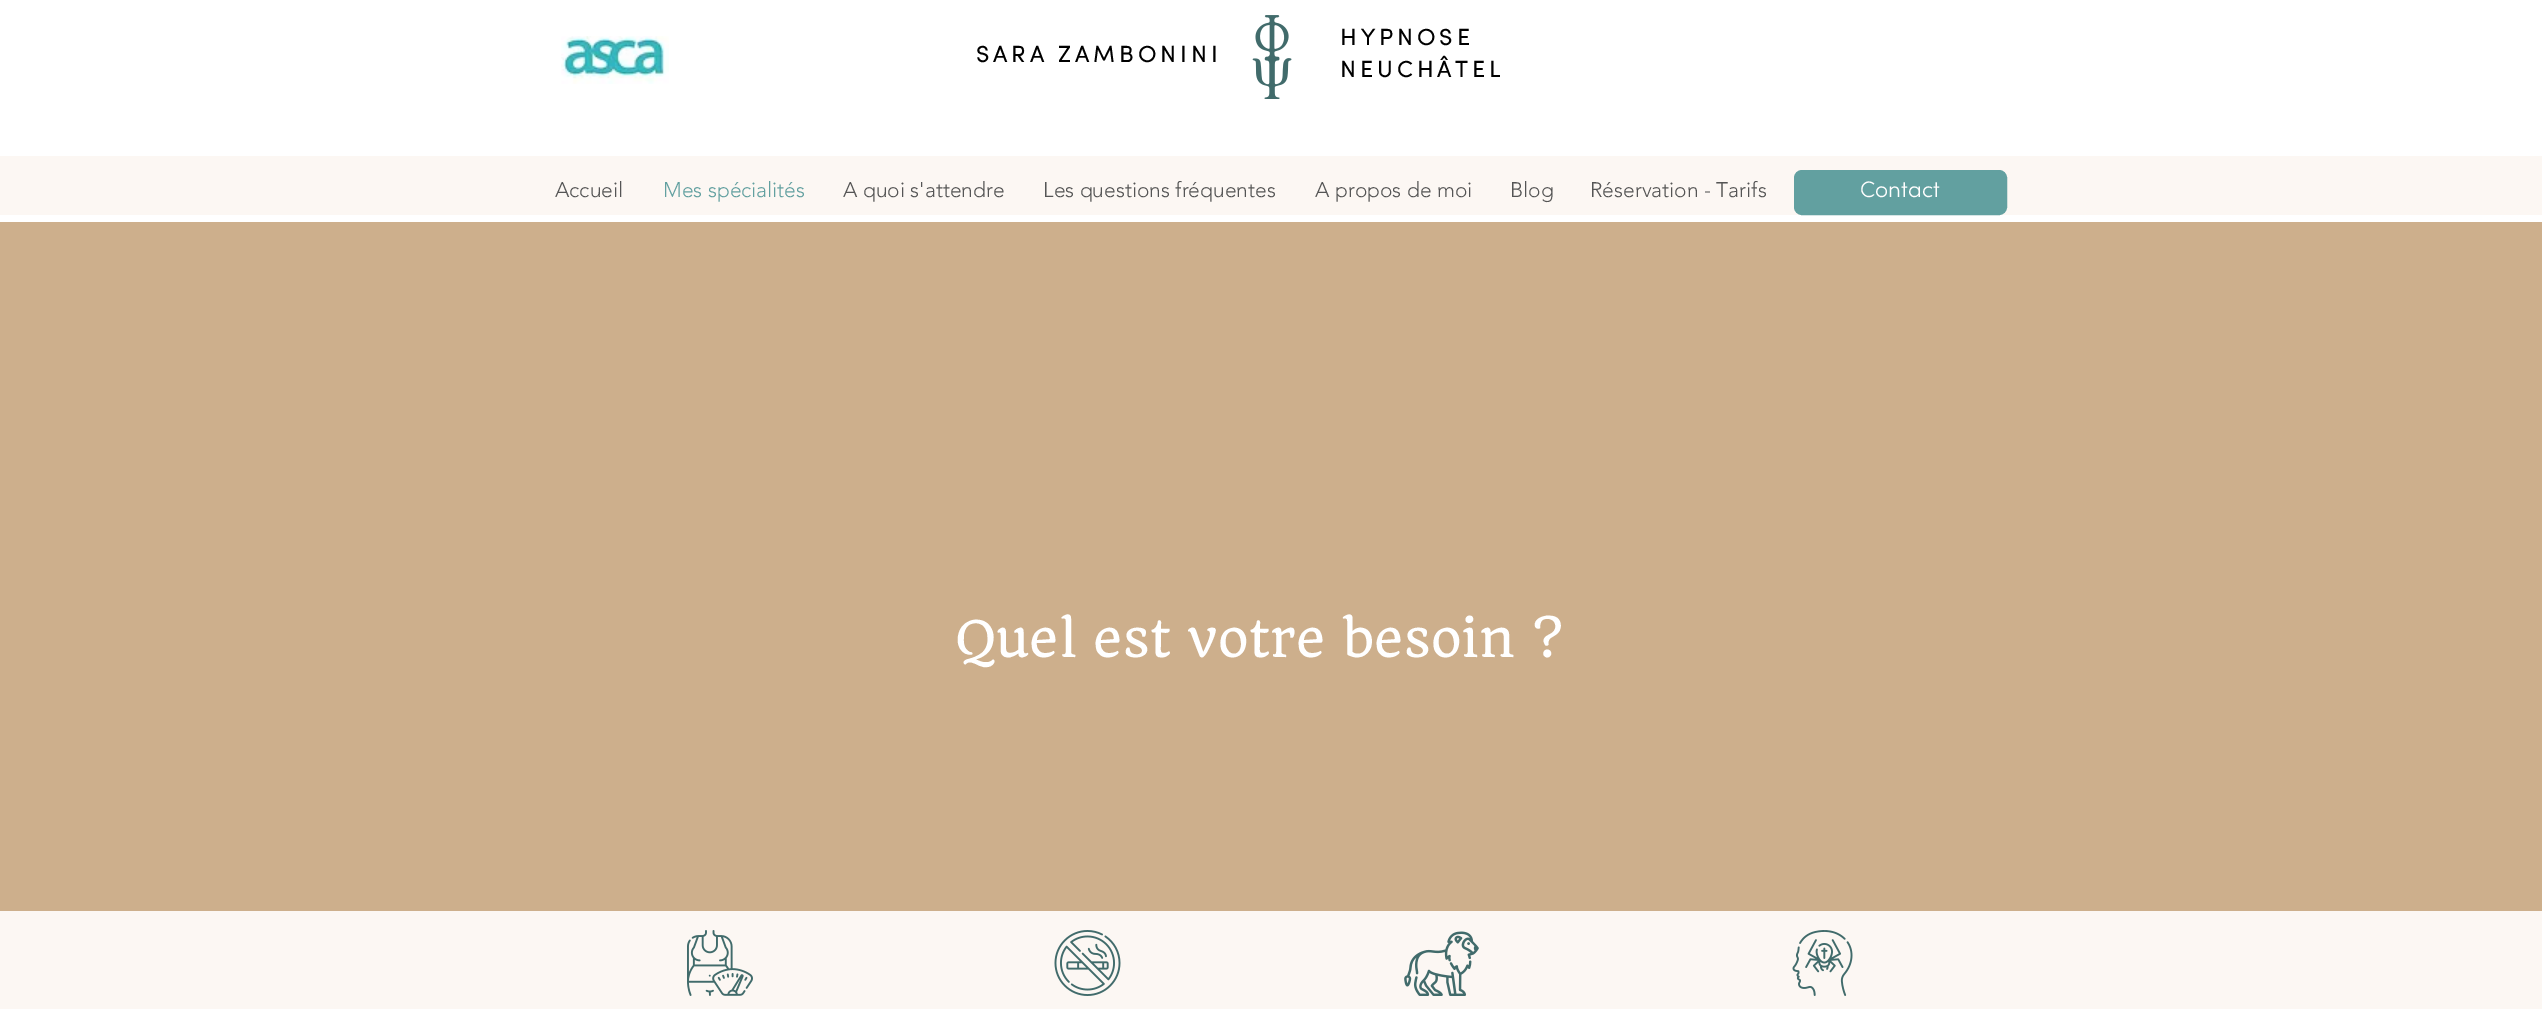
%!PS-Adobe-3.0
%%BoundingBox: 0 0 2542 1009
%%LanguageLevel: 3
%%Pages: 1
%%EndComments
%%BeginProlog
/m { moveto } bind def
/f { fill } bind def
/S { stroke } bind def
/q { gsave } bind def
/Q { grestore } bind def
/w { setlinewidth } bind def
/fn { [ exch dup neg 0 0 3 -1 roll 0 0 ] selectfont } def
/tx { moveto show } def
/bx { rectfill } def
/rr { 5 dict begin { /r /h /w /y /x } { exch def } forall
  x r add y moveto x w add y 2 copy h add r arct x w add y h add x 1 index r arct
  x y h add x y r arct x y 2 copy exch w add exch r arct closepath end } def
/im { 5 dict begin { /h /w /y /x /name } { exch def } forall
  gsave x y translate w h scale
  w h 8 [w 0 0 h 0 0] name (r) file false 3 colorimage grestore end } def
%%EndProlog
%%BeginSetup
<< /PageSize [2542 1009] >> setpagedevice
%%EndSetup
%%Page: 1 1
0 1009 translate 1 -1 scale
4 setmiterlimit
1 setgray
0 0 2542 1009 bx
/Sofia-Bold 22.5 fn
0 setgray
976 62 m 4.5 0 (SARA ZAMBONINI) ashow
(image0.raw) 1252 15 40 84 im
1340 45 m 4.5 0 (HYPNOSE) ashow
1340 77 m 4.5 0 (NEUCHÂTEL) ashow
0.988 0.969 0.953 setrgbcolor
0 156 2542 59 bx
/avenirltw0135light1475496-Light 21 fn
0.333 setgray
(Accueil) 555 197 tx
0.384 0.627 0.627 setrgbcolor
(Mes spécialités) 663 197 tx
0.333 setgray
(A quoi s'attendre) 843 197 tx
(Les questions fréquentes) 1043 197 tx
(A propos de moi) 1315 197 tx
(Blog) 1510 197 tx
(Réservation - Tarifs) 1590 197 tx
0.384 0.627 0.627 setrgbcolor
1795 171 211 43 7 rr q f Q
2 w
S
/Sofia-Light 22.5 fn
1 setgray
(Contact) 1860 197 tx
(image1.raw) 561 36 108 48 im
0.804 0.686 0.549 setrgbcolor
0 222 2542 689 bx
/Quando-Regular 49.5 fn
1 setgray
(Quel est votre besoin ?) 955 657 tx
0.988 0.969 0.953 setrgbcolor
0 911 2542 98 bx
(image2.raw) 687 930 66 66 im
(image3.raw) 1054 930 67 66 im
(image4.raw) 1404 931 75 65 im
(image5.raw) 1792 930 61 66 im
showpage
%%EOF
